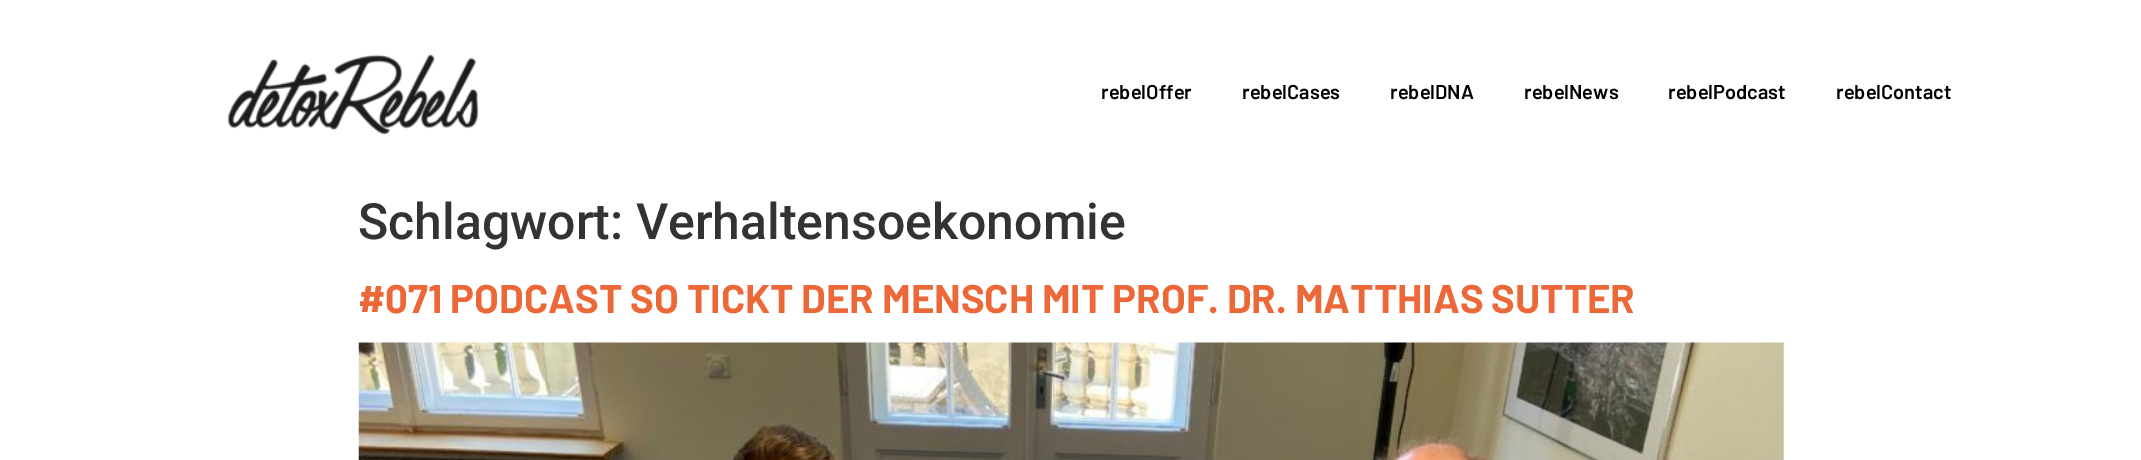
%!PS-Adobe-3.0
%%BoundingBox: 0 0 2141 460
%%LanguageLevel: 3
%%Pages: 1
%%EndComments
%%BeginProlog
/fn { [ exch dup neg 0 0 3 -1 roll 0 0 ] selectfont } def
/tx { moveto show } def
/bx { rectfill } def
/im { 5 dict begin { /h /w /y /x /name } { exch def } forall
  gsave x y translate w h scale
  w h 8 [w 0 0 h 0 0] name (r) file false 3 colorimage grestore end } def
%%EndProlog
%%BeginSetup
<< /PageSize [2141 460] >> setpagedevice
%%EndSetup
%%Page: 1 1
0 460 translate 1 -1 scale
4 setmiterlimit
1 setgray
0 0 2141 460 bx
(image0.raw) 227 54 252 81 im
/Barlow-SemiBold 20 fn
0 setgray
(rebelOffer) 1101 99 tx
(rebelCases) 1242 99 tx
(rebelDNA) 1390 99 tx
(rebelNews) 1524 99 tx
(rebelPodcast) 1668 99 tx
(rebelContact) 1836 99 tx
/Roboto-Medium 50 fn
0.2 setgray
(Schlagwort: Verhaltensoekonomie) 358 239 tx
/Barlow-Bold 40 fn
0.925 0.408 0.224 setrgbcolor
(#071 PODCAST SO TICKT DER MENSCH MIT PROF. DR. MATTHIAS SUTTER) 358 313 tx
(image1.raw) 358 342 1426 118 im
showpage
%%EOF
